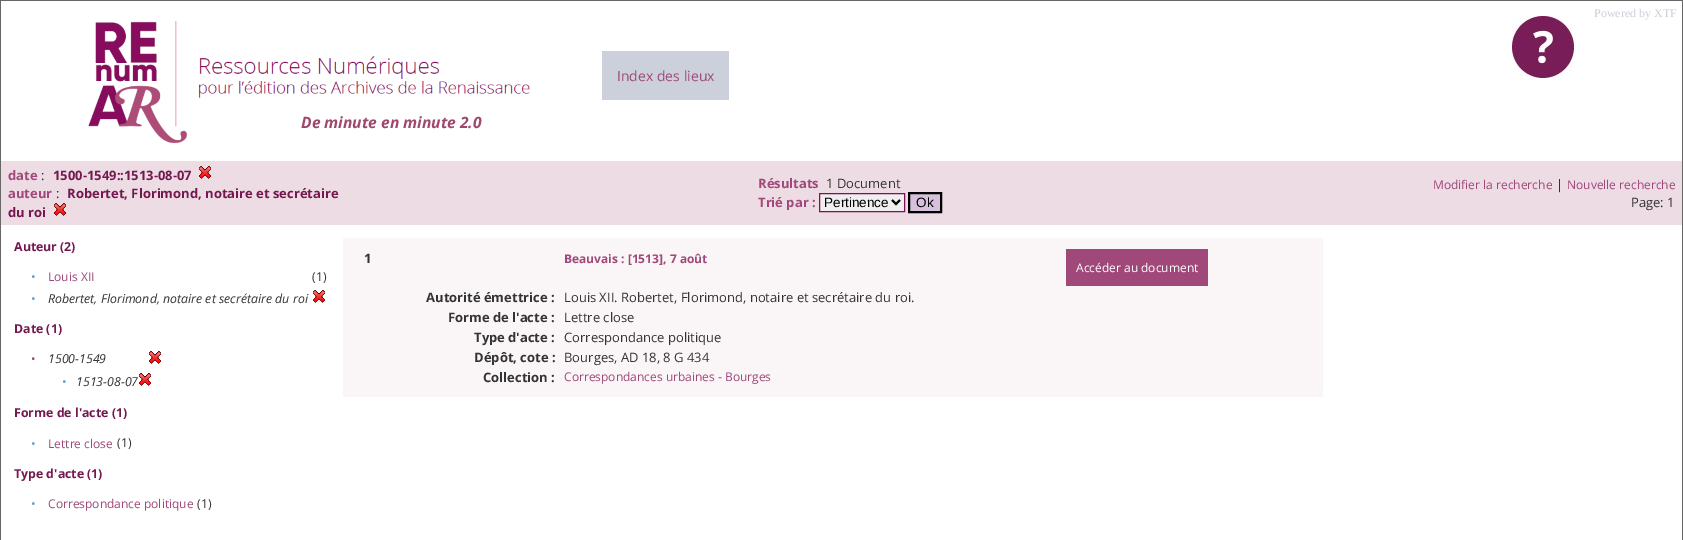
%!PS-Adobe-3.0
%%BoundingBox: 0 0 1683 540
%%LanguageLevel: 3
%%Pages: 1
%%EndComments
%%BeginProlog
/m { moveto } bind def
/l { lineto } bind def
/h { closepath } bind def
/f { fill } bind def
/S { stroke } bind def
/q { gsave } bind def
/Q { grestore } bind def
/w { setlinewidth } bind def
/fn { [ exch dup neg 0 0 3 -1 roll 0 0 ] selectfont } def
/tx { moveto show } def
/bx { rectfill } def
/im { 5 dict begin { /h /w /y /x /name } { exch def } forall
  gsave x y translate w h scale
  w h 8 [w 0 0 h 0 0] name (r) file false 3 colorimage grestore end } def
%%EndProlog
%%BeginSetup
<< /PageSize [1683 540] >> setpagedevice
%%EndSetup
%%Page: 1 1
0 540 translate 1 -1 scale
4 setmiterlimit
0.4 setgray
0 0 1683 540 bx
1 setgray
1 1 1681 160 bx
/LiberationSerif-Regular 12 fn
0.8 0.816 0.859 setrgbcolor
(Powered by XTF) 1594 17 tx
(image0.raw) 88 21 442 123 im
602 51 127 49 bx
/OpenSans-Regular 14 fn
0.624 0.282 0.475 setrgbcolor
(Index des lieux) 617 81 tx
(image1.raw) 1512 16 62 62 im
/OpenSans-BoldItalic 15.6 fn
0.624 0.282 0.424 setrgbcolor
(De minute en minute 2.0) 301 128 tx
0.929 0.863 0.89 setrgbcolor
1 161 1681 64 bx
/OpenSans-Bold 13 fn
0.624 0.282 0.475 setrgbcolor
(date) 8 180 tx
/OpenSans-Regular 13 fn
0.2 setgray
(:) 41 180 tx
/OpenSans-Bold 13 fn
0.455 0.094 0.31 setrgbcolor
(1500-1549::1513-08-07) 53 180 tx
(image2.raw) 199 166 12 13 im
0.624 0.282 0.475 setrgbcolor
(auteur) 8 198 tx
/OpenSans-Regular 13 fn
0.2 setgray
(:) 56 198 tx
/OpenSans-Bold 13 fn
0.455 0.094 0.31 setrgbcolor
(Robertet, Florimond, notaire et secrétaire) 67 198 tx
(du roi) 8 217 tx
(image2.raw) 54 203 12 13 im
0.624 0.282 0.475 setrgbcolor
(Résultats) 758 188 tx
/OpenSans-Regular 13 fn
0.2 setgray
(1 Document) 826 188 tx
/OpenSans-Bold 13 fn
0.624 0.282 0.475 setrgbcolor
(Trié par :) 758 207 tx
0.937 setgray
819.5 193.5 m 904.5 193.5 l 904.5 211.5 l 819.5 211.5 l h q f Q
0.533 0.047 0.369 setrgbcolor
S
0 setgray
2 w
892 200 m 896 204 l 900 200 l S
/LiberationSans-Regular 13.5 fn
(Pertinence) 824 207 tx
0.839 0.753 0.859 setrgbcolor
909 193 m 941 193 l 941 212 l 909 212 l h q f Q
0 setgray
S
(Ok) 916 207 tx
/OpenSans-Regular 12 fn
0.624 0.282 0.475 setrgbcolor
(Modifier la recherche) 1433 189 tx
/OpenSans-Regular 13 fn
0.2 setgray
(|) 1556 189 tx
/OpenSans-Regular 12 fn
0.624 0.282 0.475 setrgbcolor
(Nouvelle recherche) 1567 189 tx
/OpenSans-Regular 13 fn
0.2 setgray
(Page: 1) 1631 207 tx
1 setgray
1 225 1681 315 bx
/OpenSans-Bold 12.35 fn
0.455 0.094 0.31 setrgbcolor
(Auteur \(2\)) 14 251 tx
/OpenSans-Regular 12.35 fn
0.4 0.6 0.8 setrgbcolor
(•) 31 281 tx
/OpenSans-Regular 12 fn
0.624 0.282 0.475 setrgbcolor
(Louis XII) 48 281 tx
/OpenSans-Regular 12.35 fn
0.2 setgray
(\(1\)) 312 281 tx
0.4 0.6 0.8 setrgbcolor
(•) 31 303 tx
/OpenSans-Italic 12.35 fn
0.2 setgray
(Robertet, Florimond, notaire et secrétaire du roi) 48 303 tx
(image3.raw) 313 290 12 13 im
/OpenSans-Bold 12.35 fn
0.455 0.094 0.31 setrgbcolor
(Date \(1\)) 14 333 tx
/OpenSans-Regular 12 fn
0.624 0.282 0.475 setrgbcolor
(•) 31 363 tx
/OpenSans-Italic 12.35 fn
0.2 setgray
(1500-1549) 48 363 tx
(image3.raw) 149 351 12 13 im
/OpenSans-Regular 12.35 fn
0.4 0.6 0.8 setrgbcolor
(•) 62 386 tx
/OpenSans-Italic 12.35 fn
0.2 setgray
(1513-08-07) 76 386 tx
(image3.raw) 139 373 12 13 im
/OpenSans-Bold 12.35 fn
0.455 0.094 0.31 setrgbcolor
(Forme de l'acte \(1\)) 14 417 tx
/OpenSans-Regular 12.35 fn
0.4 0.6 0.8 setrgbcolor
(•) 31 448 tx
/OpenSans-Regular 12 fn
0.624 0.282 0.475 setrgbcolor
(Lettre close) 48 448 tx
/OpenSans-Regular 12.35 fn
0.2 setgray
(\(1\)) 117 447 tx
/OpenSans-Bold 12.35 fn
0.455 0.094 0.31 setrgbcolor
(Type d'acte \(1\)) 14 478 tx
/OpenSans-Regular 12.35 fn
0.4 0.6 0.8 setrgbcolor
(•) 31 508 tx
/OpenSans-Regular 12 fn
0.624 0.282 0.475 setrgbcolor
(Correspondance politique) 48 508 tx
/OpenSans-Regular 12.35 fn
0.2 setgray
(\(1\)) 197 508 tx
0.98 0.961 0.969 setrgbcolor
343 238 980 159 bx
/OpenSans-Bold 13 fn
0.2 setgray
(1) 364 263 tx
/OpenSans-Bold 12 fn
0.624 0.282 0.475 setrgbcolor
(Beauvais : [1513], 7 août) 564 263 tx
1066 249 142 37 bx
/OpenSans-Regular 12 fn
1 setgray
(Accéder au document) 1076 272 tx
/OpenSans-Bold 13 fn
0.2 setgray
(Autorité émettrice :) 426 302 tx
/OpenSans-Regular 13 fn
(Louis XII. Robertet, Florimond, notaire et secrétaire du roi.) 564 302 tx
/OpenSans-Bold 13 fn
(Forme de l'acte :) 448 322 tx
/OpenSans-Regular 13 fn
(Lettre close) 564 322 tx
/OpenSans-Bold 13 fn
(Type d'acte :) 474 342 tx
/OpenSans-Regular 13 fn
(Correspondance politique) 564 342 tx
/OpenSans-Bold 13 fn
(Dépôt, cote :) 474 362 tx
/OpenSans-Regular 13 fn
(Bourges, AD 18, 8 G 434) 564 362 tx
/OpenSans-Bold 13 fn
(Collection :) 483 382 tx
/OpenSans-Regular 12 fn
0.624 0.282 0.475 setrgbcolor
(Correspondances urbaines - Bourges) 564 381 tx
showpage
%%EOF
